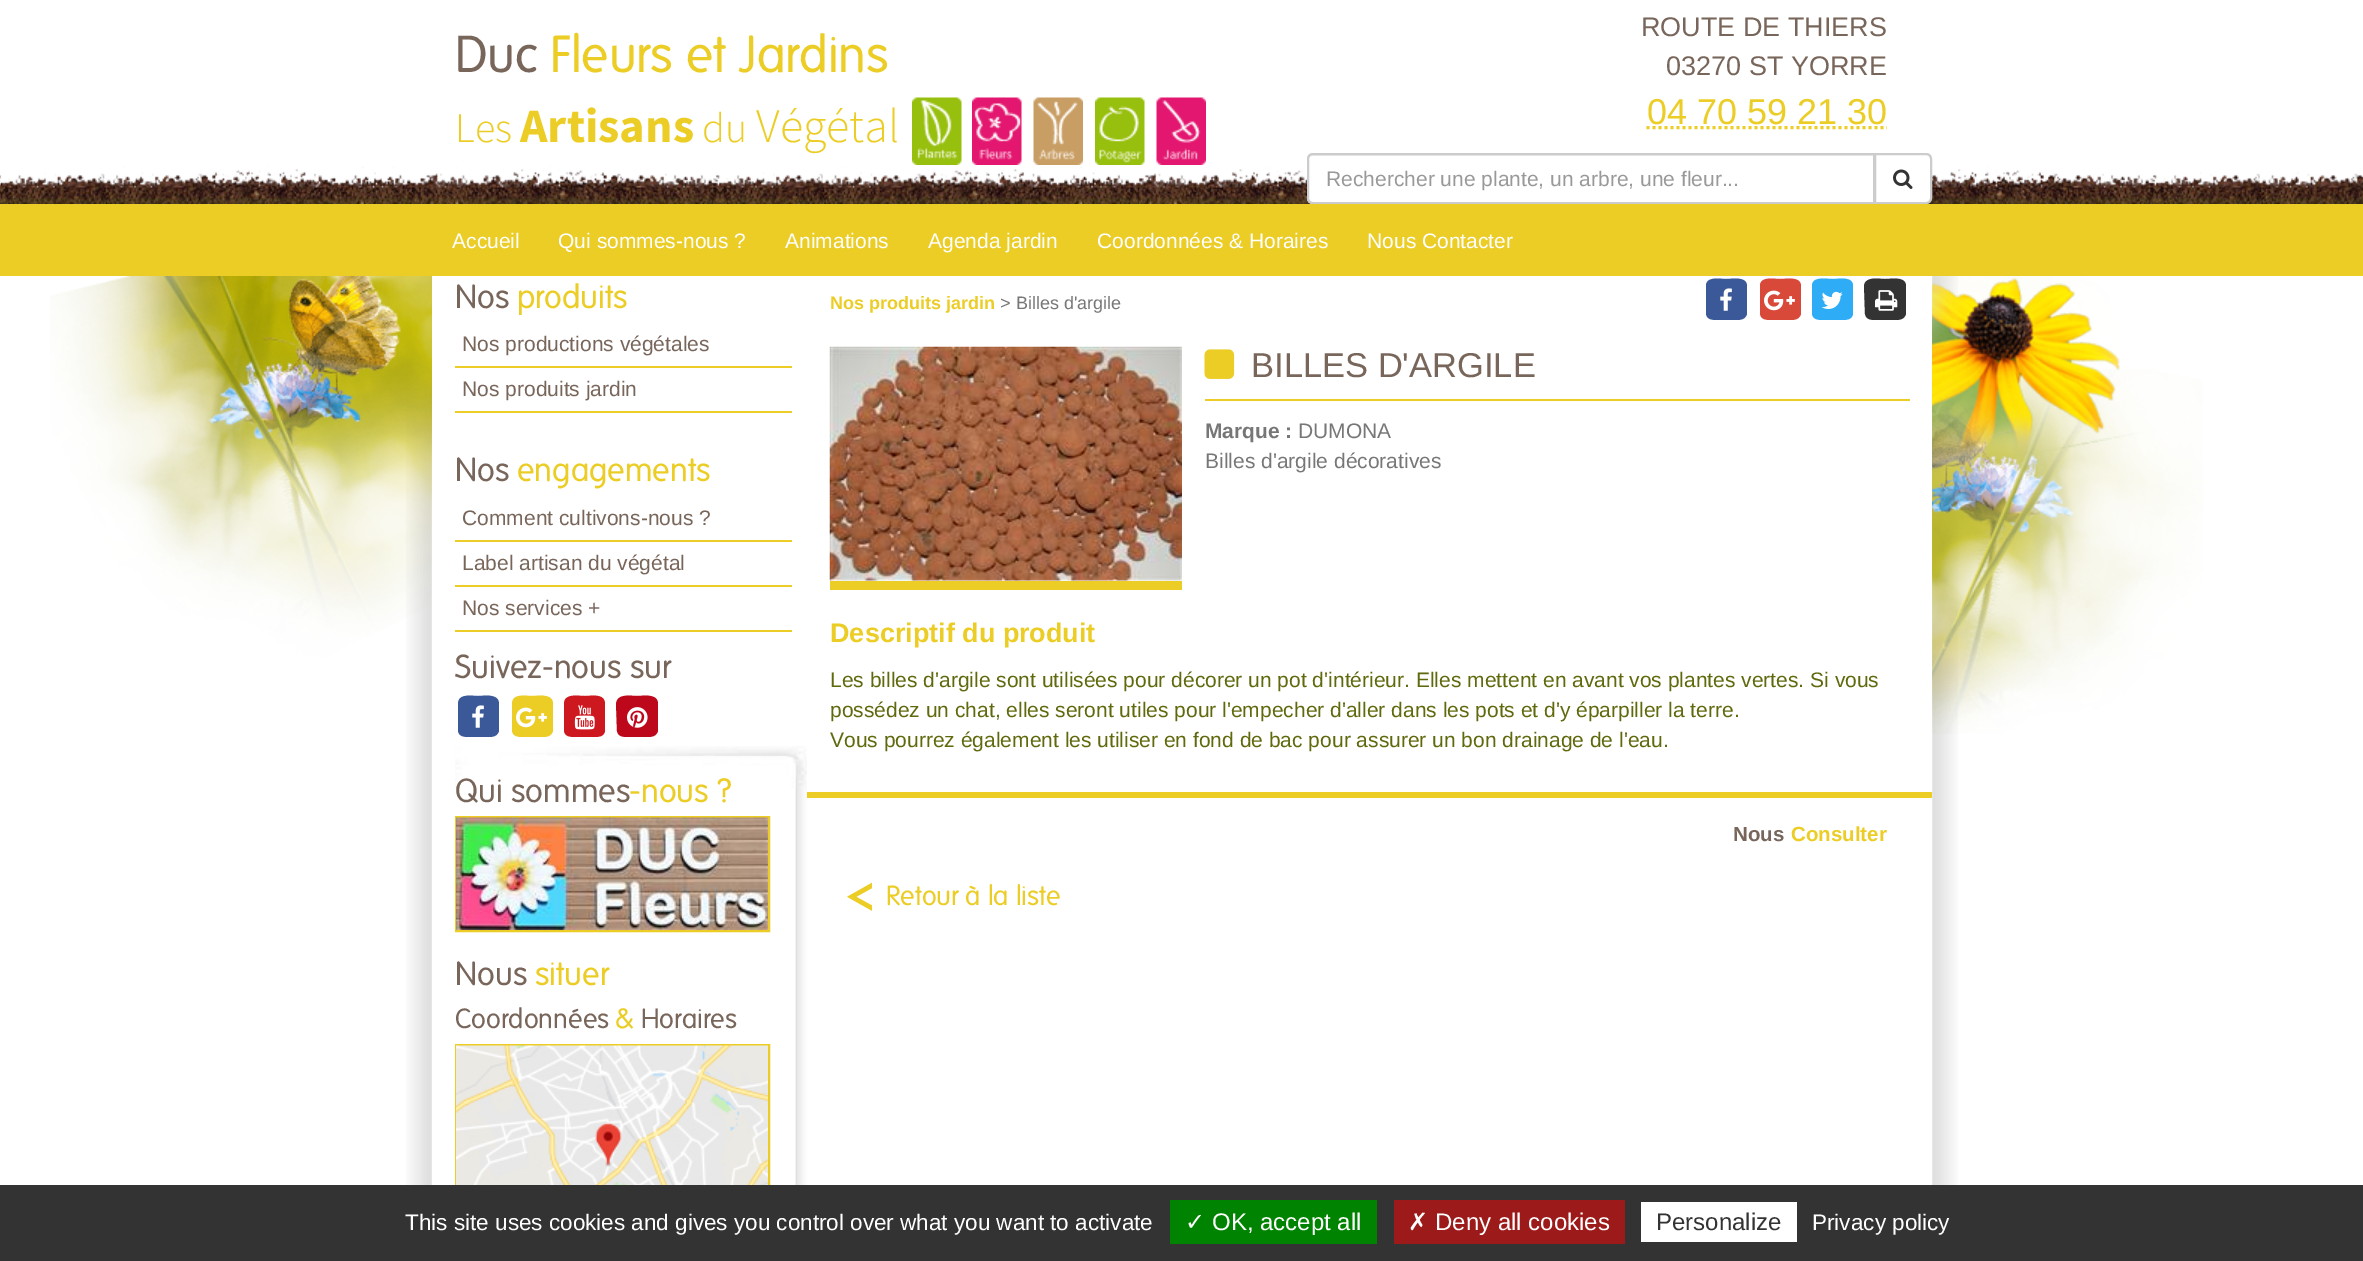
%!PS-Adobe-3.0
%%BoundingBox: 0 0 2363 1261
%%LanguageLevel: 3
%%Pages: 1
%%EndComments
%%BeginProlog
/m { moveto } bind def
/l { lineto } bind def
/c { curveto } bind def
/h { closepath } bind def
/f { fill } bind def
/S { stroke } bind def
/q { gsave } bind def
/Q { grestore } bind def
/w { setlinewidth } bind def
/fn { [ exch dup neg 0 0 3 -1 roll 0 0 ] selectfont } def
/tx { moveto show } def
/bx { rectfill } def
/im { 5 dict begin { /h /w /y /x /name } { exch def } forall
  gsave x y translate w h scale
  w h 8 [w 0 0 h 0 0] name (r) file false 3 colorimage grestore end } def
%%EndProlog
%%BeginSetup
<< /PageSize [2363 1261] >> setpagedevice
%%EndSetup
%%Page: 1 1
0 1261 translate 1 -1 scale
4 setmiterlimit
1 setgray
0 0 2363 1261 bx
(image0.raw) 0 166 2363 38 im
432 166 1500 38 bx
(image1.raw) 432 166 1500 38 im
/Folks-Regular 50.5 fn
0.475 0.4 0.357 setrgbcolor
(Duc) 455 72 tx
0.922 0.804 0.149 setrgbcolor
(Fleurs et Jardins) 550 72 tx
/SourceSansPro-Light 42 fn
(Les) 455 142 tx
/SourceSansPro-Bold 48 fn
(Artisans) 520 142 tx
/SourceSansPro-Light 42 fn
(du) 702 142 tx
/SourceSansPro-Light 48 fn
(Végétal) 756 142 tx
(image2.raw) 912 97 50 68 im
(image3.raw) 972 97 50 68 im
(image4.raw) 1033 97 50 68 im
(image5.raw) 1095 97 50 68 im
(image6.raw) 1156 97 50 68 im
/LiberationSans-Regular 27 fn
0.475 0.4 0.357 setrgbcolor
(ROUTE DE THIERS) 1641 36 tx
(03270 ST YORRE) 1666 75 tx
/LiberationSans-Regular 36 fn
0.922 0.804 0.149 setrgbcolor
(04 70 59 21 30) 1647 124 tx
3 w
[3 3] 0 setdash
1646.5 127.5 m 1887 127.5 l S
1 setgray
1313 153 m 1875 153 l 1875 204 l 1313 204 l 1309.5 204 1307 201.5 1307 198 c 1307 159 l 1307 155.5 1309.5 153 1313 153 c h f
0.925 setgray
1312 156 m 1874 156 l 1874 155 l 1313 155 l 1310 155 1308 157 1308 160 c 1308 158 1310 156 1312 156 c h f
0.8 setgray
2 w
[] 0 setdash
1313 154 m 1874 154 l 1874 203 l 1313 203 l 1310 203 1308 201 1308 198 c 1308 159 l 1308 156 1310 154 1313 154 c h S
/LiberationSans-Regular 21 fn
0.6 setgray
(Rechercher une plante, un arbre, une fleur...) 1326 186 tx
1 setgray
1875 154 m 1926 154 l 1929 154 1931 156 1931 159 c 1931 198 l 1931 201 1929 203 1926 203 c 1875 203 l h q f Q
0.8 setgray
S
(image7.raw) 1893 169 20 20 im
0.922 0.804 0.149 setrgbcolor
0 204 2363 72 bx
1 setgray
(Accueil) 452 248 tx
(Qui sommes-nous ?) 558 248 tx
(Animations) 785 248 tx
(Agenda jardin) 928 248 tx
(Coordonnées & Horaires) 1097 248 tx
(Nous Contacter) 1367 248 tx
(image9.raw) 406 276 1552 909 im
(image8.raw) 50 276 2153 458 im
432 276 1500 909 bx
/Folks-Regular 32.5 fn
0.475 0.4 0.357 setrgbcolor
(Nos) 455 308 tx
0.922 0.804 0.149 setrgbcolor
(produits) 517 308 tx
455 366 337 2 bx
/LiberationSans-Regular 21 fn
0.475 0.4 0.357 setrgbcolor
(Nos productions végétales) 462 351 tx
0.922 0.804 0.149 setrgbcolor
455 411 337 2 bx
0.475 0.4 0.357 setrgbcolor
(Nos produits jardin) 462 396 tx
/Folks-Regular 32.5 fn
(Nos) 455 481 tx
0.922 0.804 0.149 setrgbcolor
(engagements) 517 481 tx
455 540 337 2 bx
/LiberationSans-Regular 21 fn
0.475 0.4 0.357 setrgbcolor
(Comment cultivons-nous ?) 462 525 tx
0.922 0.804 0.149 setrgbcolor
455 585 337 2 bx
0.475 0.4 0.357 setrgbcolor
(Label artisan du végétal) 462 570 tx
0.922 0.804 0.149 setrgbcolor
455 630 337 2 bx
0.475 0.4 0.357 setrgbcolor
(Nos services +) 462 615 tx
/Folks-Regular 32.5 fn
(Suivez-nous sur) 455 678 tx
0.231 0.349 0.596 setrgbcolor
499 704 m 499 731 l 497 737 492 737 487 737 c 470 737 l 465 737 459 737 458 731 c 458 704 l 458 693 472 696 478 696 c 484 696 499 693 499 704 c h f
(image10.raw) 472 705 12 23 im
0.922 0.804 0.149 setrgbcolor
553 704 m 553 731 l 551 737 546 737 541 737 c 524 737 l 519 737 513 737 512 731 c 512 704 l 512 693 526 696 532 696 c 538 696 553 693 553 704 c h f
(image11.raw) 516 707 31 21 im
0.8 0.094 0.118 setrgbcolor
605 704 m 605 731 l 604 737 598 737 593 737 c 576 737 l 571 737 565 737 564 731 c 564 704 l 564 693 578 696 585 696 c 591 696 605 693 605 704 c h f
(image12.raw) 574 705 21 25 im
0.741 0.031 0.11 setrgbcolor
658 704 m 658 731 l 656 737 651 737 646 737 c 628 737 l 624 737 618 737 617 731 c 616 704 l 617 693 631 696 637 696 c 643 696 658 693 658 704 c h f
(image13.raw) 627 707 21 21 im
(image14.raw) 455 746 352 439 im
0.475 0.4 0.357 setrgbcolor
(Qui sommes) 455 802 tx
0.922 0.804 0.149 setrgbcolor
(-nous ?) 629 802 tx
456 817 313 114 rectstroke
(image15.raw) 456 817 312 113 im
0.475 0.4 0.357 setrgbcolor
(Nous) 455 985 tx
0.922 0.804 0.149 setrgbcolor
(situer) 535 985 tx
/Folks-Regular 27 fn
0.475 0.4 0.357 setrgbcolor
(Coordonnées) 455 1028 tx
0.922 0.804 0.149 setrgbcolor
(&) 615 1028 tx
0.475 0.4 0.357 setrgbcolor
(Horaires) 641 1028 tx
0.922 0.804 0.149 setrgbcolor
456 1045 313 207 rectstroke
(image16.raw) 456 1045 312 140 im
/LiberationSans-Bold 18 fn
(Nos produits jardin) 830 309 tx
/LiberationSans-Regular 18 fn
0.467 setgray
(> Billes d'argile) 1000 309 tx
0.231 0.349 0.596 setrgbcolor
1747 286 m 1747 314 l 1745 320 1740 320 1735 320 c 1718 320 l 1713 320 1707 320 1706 314 c 1706 286 l 1706 276 1720 279 1726 279 c 1732 279 1747 276 1747 286 c h f
(image10.raw) 1720 288 12 23 im
0.847 0.286 0.224 setrgbcolor
1801 286 m 1801 314 l 1799 320 1794 320 1789 320 c 1772 320 l 1767 320 1761 320 1760 314 c 1760 286 l 1760 276 1774 279 1780 279 c 1786 279 1801 276 1801 286 c h f
(image17.raw) 1764 290 31 21 im
0.18 0.675 0.965 setrgbcolor
1853 286 m 1853 314 l 1852 320 1846 320 1841 320 c 1824 320 l 1819 320 1813 320 1812 314 c 1812 286 l 1812 276 1826 279 1833 279 c 1839 279 1853 276 1853 286 c h f
(image18.raw) 1821 291 22 18 im
0.2 setgray
1906 286 m 1906 314 l 1904 320 1899 320 1894 320 c 1876 320 l 1872 320 1866 320 1865 314 c 1864 286 l 1865 276 1879 279 1885 279 c 1891 279 1906 276 1906 286 c h f
(image19.raw) 1875 290 23 21 im
(image20.raw) 829 346 353 235 im
0.922 0.804 0.149 setrgbcolor
830 581 352 9 bx
1205 399 705 2 bx
(image21.raw) 1204 349 31 30 im
/LiberationSans-Regular 34.5 fn
0.475 0.4 0.357 setrgbcolor
(BILLES D'ARGILE) 1251 377 tx
/LiberationSans-Bold 21 fn
0.467 setgray
(Marque :) 1205 438 tx
/LiberationSans-Regular 21 fn
(DUMONA) 1298 438 tx
(Billes d'argile décoratives) 1205 468 tx
/LiberationSans-Bold 27 fn
0.922 0.804 0.149 setrgbcolor
(Descriptif du produit) 830 642 tx
/LiberationSans-Regular 21 fn
0.38 0.412 0.051 setrgbcolor
(Les billes d'argile sont utilisées pour décorer un pot d'intérieur. Elles mettent en avant vos plantes vertes. Si vous) 830 687 tx
(possédez un chat, elles seront utiles pour l'empecher d'aller dans les pots et d'y éparpiller la terre.) 830 717 tx
(Vous pourrez également les utiliser en fond de bac pour assurer un bon drainage de l'eau.) 830 747 tx
0.922 0.804 0.149 setrgbcolor
807 792 1125 6 bx
/LiberationSans-Bold 20.5 fn
0.475 0.4 0.357 setrgbcolor
(Nous) 1733 841 tx
0.922 0.804 0.149 setrgbcolor
(Consulter) 1791 841 tx
/Folks-Bold 54 fn
(<) 845 917 tx
/Folks-Regular 27 fn
(Retour à la liste) 886 905 tx
0.2 setgray
0 1185 2363 76 bx
/LiberationSans-Regular 22.5 fn
1 setgray
(This site uses cookies and gives you control over what you want to activate) 405 1230 tx
0 0.514 0 setrgbcolor
1170 1200 207 44 bx
/DejaVuSans-Regular 24 fn
1 setgray
(✓) 1185 1230 tx
/LiberationSans-Regular 24 fn
(OK, accept all) 1212 1230 tx
0.612 0.102 0.102 setrgbcolor
1394 1200 231 44 bx
/DejaVuSans-Regular 24 fn
1 setgray
(✗) 1408 1230 tx
/LiberationSans-Regular 24 fn
(Deny all cookies) 1435 1230 tx
1641 1202 156 40 bx
0.2 setgray
(Personalize) 1656 1230 tx
/LiberationSans-Regular 22.5 fn
1 setgray
(Privacy policy) 1812 1230 tx
showpage
%%EOF
